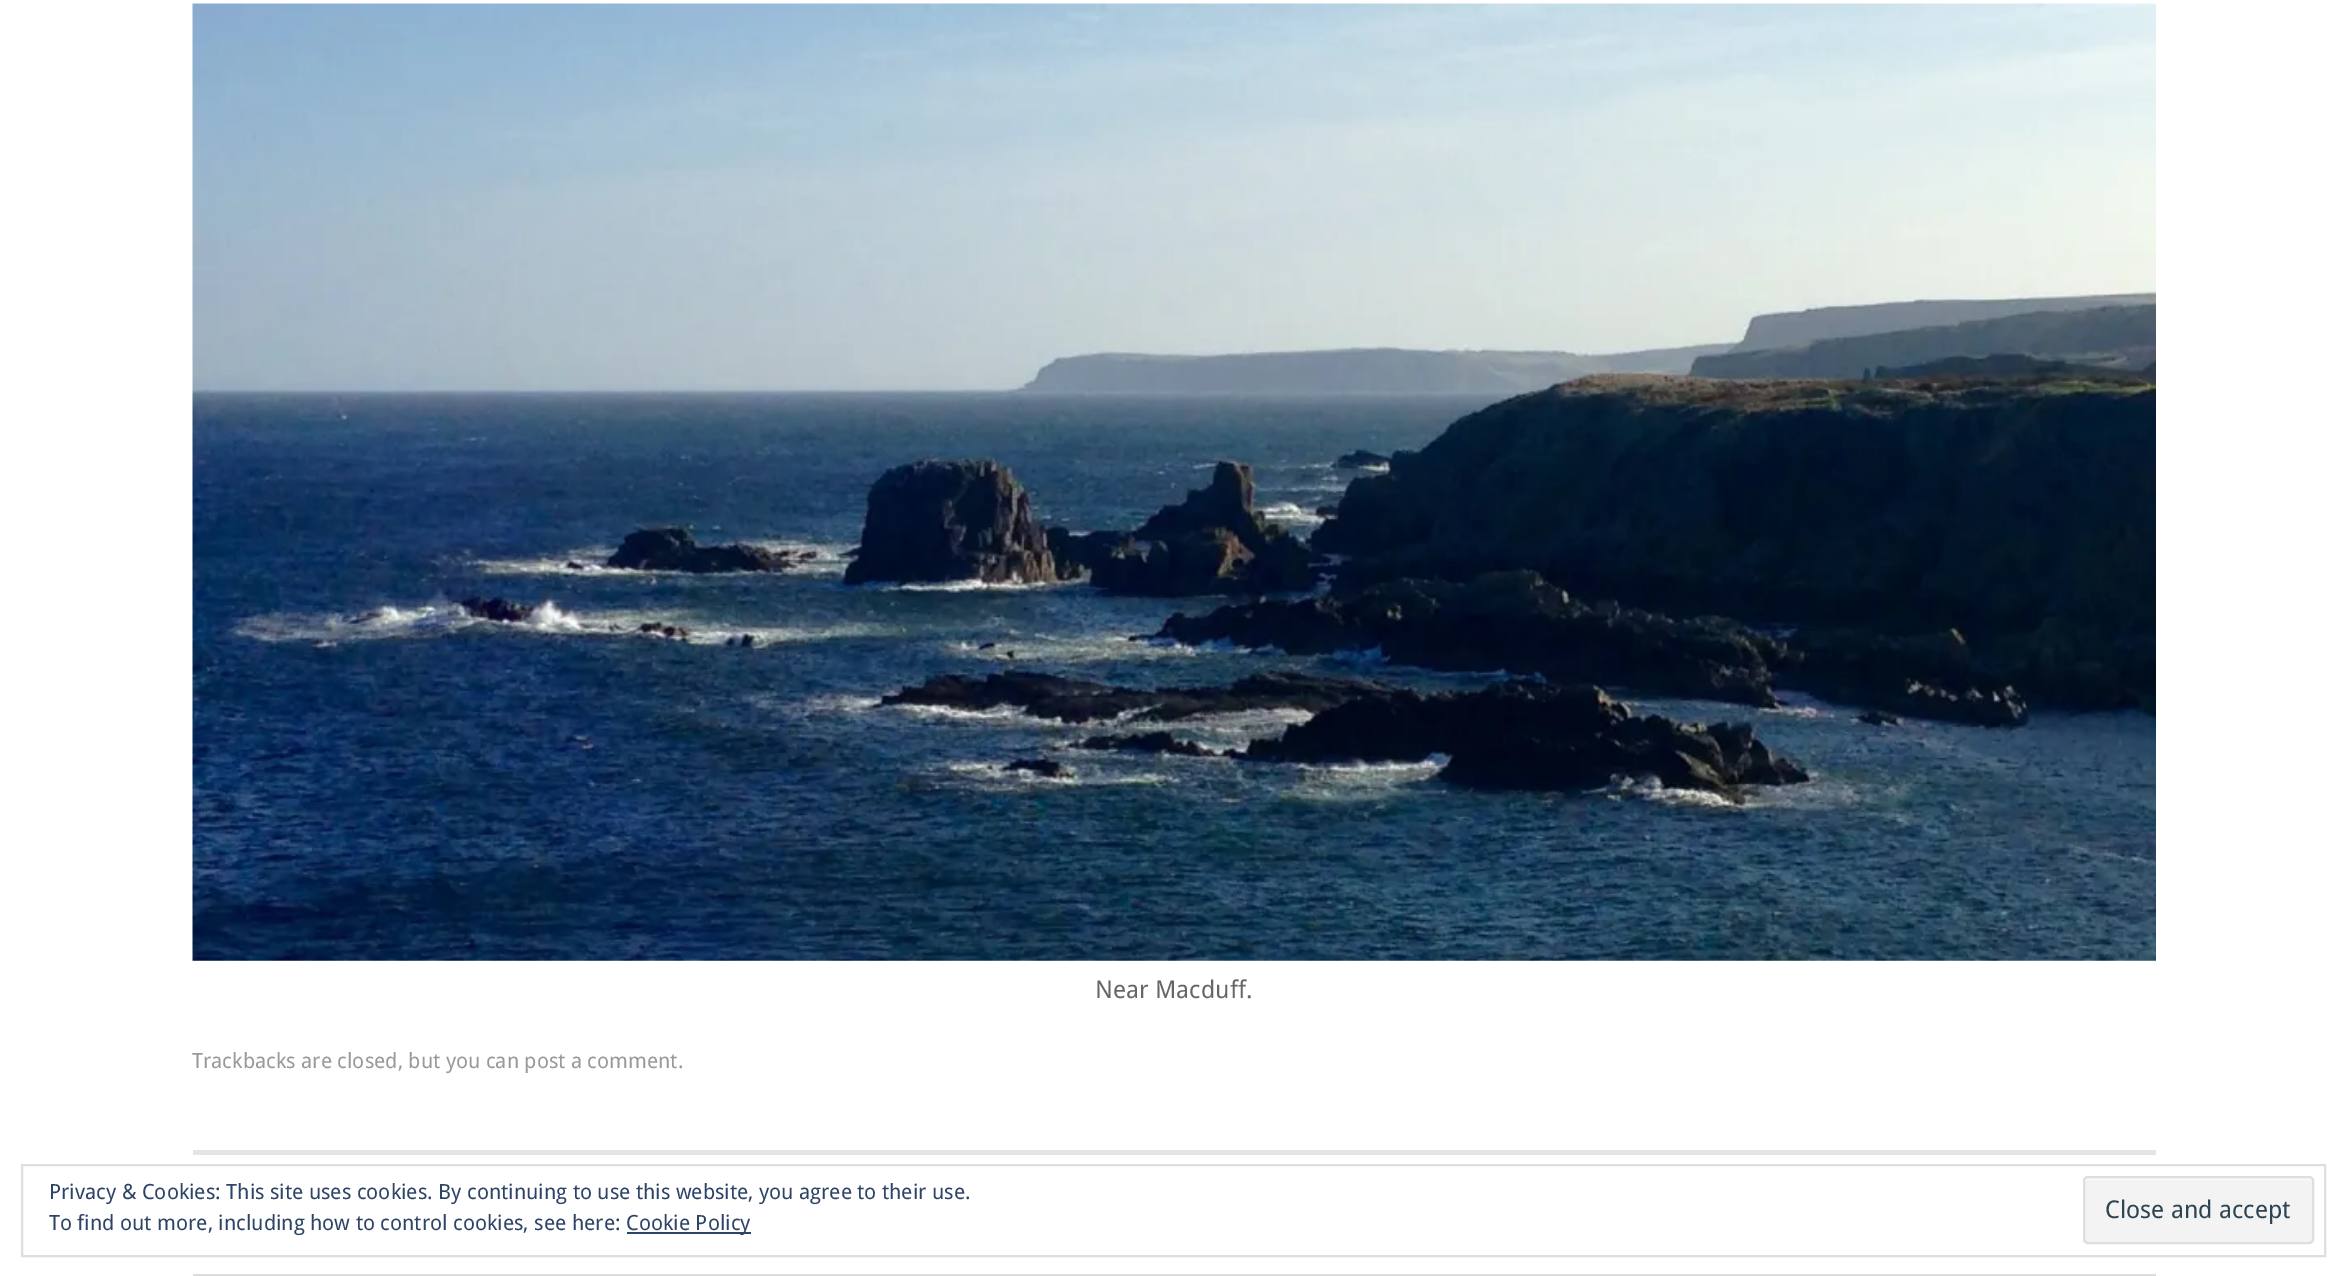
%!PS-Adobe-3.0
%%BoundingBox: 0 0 2346 1276
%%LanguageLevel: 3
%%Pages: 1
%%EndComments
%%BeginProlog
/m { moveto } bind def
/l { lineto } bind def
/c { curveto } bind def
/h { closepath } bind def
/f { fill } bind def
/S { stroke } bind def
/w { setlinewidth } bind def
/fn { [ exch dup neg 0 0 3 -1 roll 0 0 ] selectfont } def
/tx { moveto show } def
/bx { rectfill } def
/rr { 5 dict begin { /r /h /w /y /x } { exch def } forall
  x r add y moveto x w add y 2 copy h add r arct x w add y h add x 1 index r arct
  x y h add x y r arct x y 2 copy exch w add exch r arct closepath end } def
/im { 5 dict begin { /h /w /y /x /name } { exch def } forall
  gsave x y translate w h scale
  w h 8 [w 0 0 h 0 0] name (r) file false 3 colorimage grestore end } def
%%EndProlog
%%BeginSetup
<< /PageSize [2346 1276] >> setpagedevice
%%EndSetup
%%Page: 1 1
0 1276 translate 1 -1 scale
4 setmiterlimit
1 setgray
0 0 2346 1276 bx
(image0.raw) 192 3 1964 958 im
/DroidSans-Regular 24.5 fn
0.4 setgray
(Near Macduff.) 1095 998 tx
/DroidSans-Regular 21 fn
0.6 setgray
(Trackbacks are closed, but you can post a comment.) 192 1068 tx
0.894 0.894 0.886 setrgbcolor
193 1150 1963 5 bx
0.863 0.863 0.871 setrgbcolor
193 1274 1963 2 bx
0.871 setgray
2 w
22 1165 2303 91 rectstroke
0.18 0.267 0.404 setrgbcolor
(Privacy & Cookies: This site uses cookies. By continuing to use this website, you agree to their use.) 49 1199 tx
(To find out more, including how to control cookies, see here:) 49 1230 tx
627 1232 124 2 bx
(Cookie Policy) 626 1230 tx
0.953 setgray
2083 1176 231 68 5 rr f
0.976 setgray
2088 1180 m 2308 1180 l 2310 1180 2312 1181 2312 1183 c 2312 1180 2311 1178 2308 1178 c 2088 1178 l 2085 1178 2084 1180 2084 1183 c 2084 1181 2086 1180 2088 1180 c h f
0.871 setgray
2084 1177 229 66 4 rr S
/DroidSans-Regular 24.5 fn
0.18 0.267 0.325 setrgbcolor
(Close and accept) 2105 1218 tx
showpage
%%EOF
